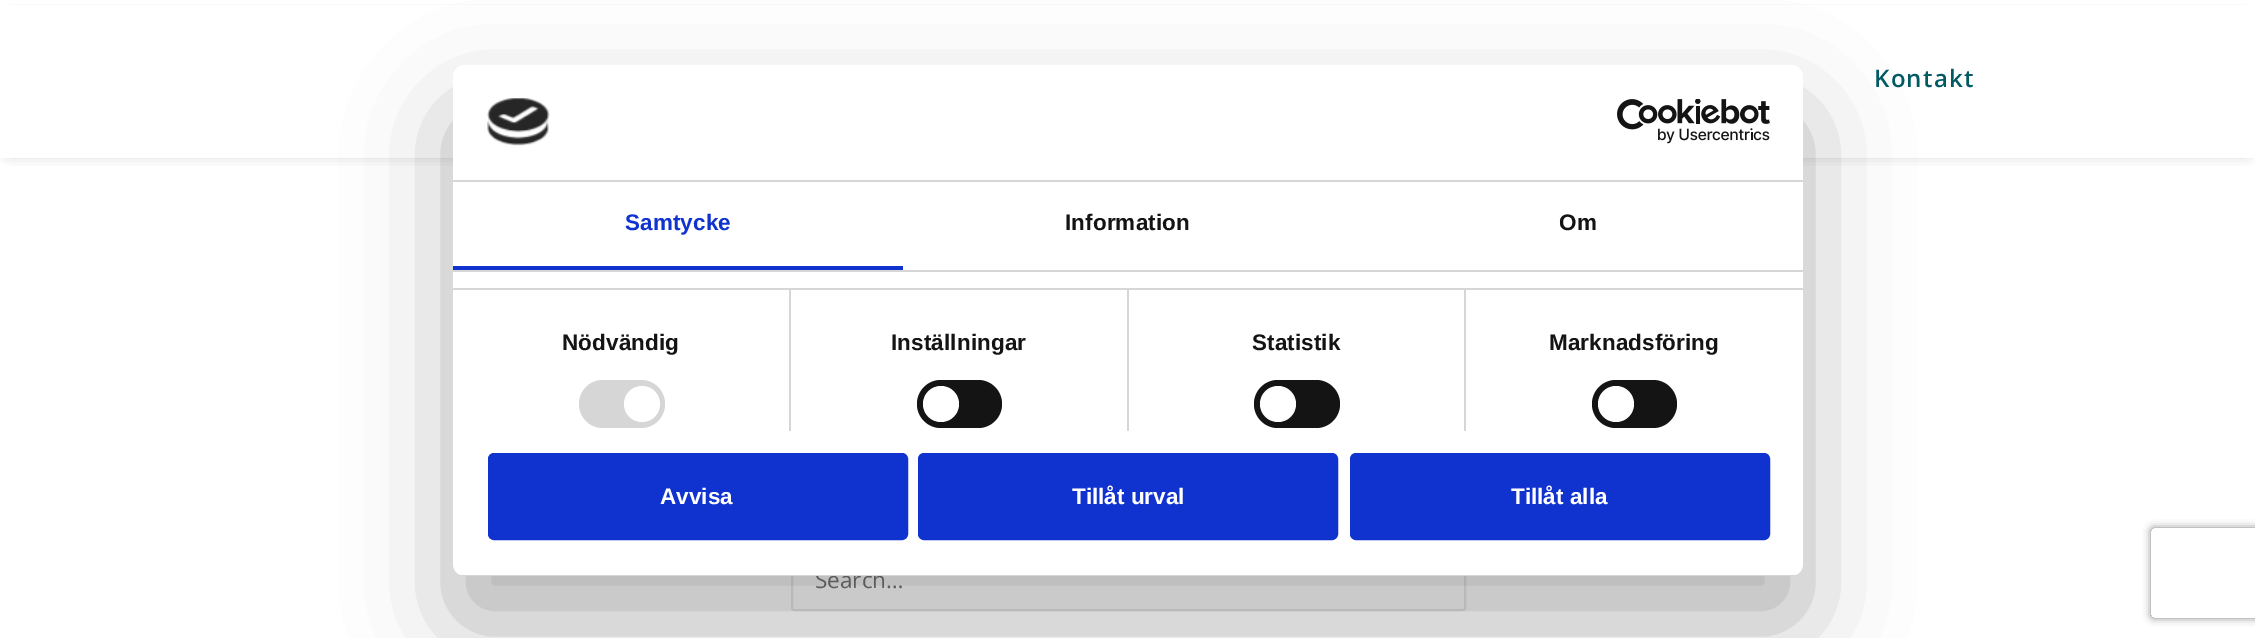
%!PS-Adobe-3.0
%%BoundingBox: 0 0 2255 638
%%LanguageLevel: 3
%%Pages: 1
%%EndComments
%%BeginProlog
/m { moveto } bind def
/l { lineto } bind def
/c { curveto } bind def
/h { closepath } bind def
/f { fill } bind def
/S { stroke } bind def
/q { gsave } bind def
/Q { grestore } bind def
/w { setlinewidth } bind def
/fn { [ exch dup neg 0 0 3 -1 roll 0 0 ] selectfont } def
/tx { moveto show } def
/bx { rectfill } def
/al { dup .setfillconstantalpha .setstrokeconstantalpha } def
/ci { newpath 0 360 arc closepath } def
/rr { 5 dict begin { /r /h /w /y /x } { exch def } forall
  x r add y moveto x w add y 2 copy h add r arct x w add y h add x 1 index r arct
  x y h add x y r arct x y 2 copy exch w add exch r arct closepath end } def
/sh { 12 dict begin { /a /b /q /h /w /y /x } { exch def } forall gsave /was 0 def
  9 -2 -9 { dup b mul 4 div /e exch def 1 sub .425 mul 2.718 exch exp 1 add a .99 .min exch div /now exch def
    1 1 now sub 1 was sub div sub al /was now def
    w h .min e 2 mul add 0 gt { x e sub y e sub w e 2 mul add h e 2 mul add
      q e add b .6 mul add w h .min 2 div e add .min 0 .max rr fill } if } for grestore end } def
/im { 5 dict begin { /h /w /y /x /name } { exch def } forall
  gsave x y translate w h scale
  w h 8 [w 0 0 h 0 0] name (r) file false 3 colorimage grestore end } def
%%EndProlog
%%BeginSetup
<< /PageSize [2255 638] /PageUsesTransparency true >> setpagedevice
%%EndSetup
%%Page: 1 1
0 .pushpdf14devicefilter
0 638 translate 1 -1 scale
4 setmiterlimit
1 setgray
0 0 2255 638 bx
0 setgray
9 21 2238 128 0 7.5 0.6 sh
1 setgray
0 5 2255 153 bx
/OpenSans-SemiBold 24 fn
0 0.353 0.392 setrgbcolor
1874 87 m 1.25 0 (Kontakt) ashow
0.918 setgray
2 w
792 549 673 61 2 rr S
/OpenSans-Regular 22.5 fn
0.467 setgray
(Search…) 815 588 tx
0 setgray
453 113 1350 511 12 51 0.3 sh
1 setgray
453 65 1350 511 12 rr f
0.839 setgray
453 180 1350 2 bx
(image0.raw) 487 98 63 48 im
(image1.raw) 1617 99 153 45 im
453 270 1350 2 bx
0.063 0.196 0.812 setrgbcolor
453 266 450 4 bx
/LiberationSans-Bold 22.5 fn
625 230 m 0.1 0 (Samtycke) ashow
0.078 setgray
1065 230 m 0.1 0 (Information) ashow
1559 230 m 0.1 0 (Om) ashow
0.839 setgray
453 288 1350 2 bx
789 290 2 141 bx
0.078 setgray
562 350 m 0.1 0 (Nödvändig) ashow
0.839 setgray
579 380 86 48 24 rr f
1 setgray
642 404 18 ci f
0.839 setgray
1127 290 2 141 bx
0.078 setgray
891 350 m 0.1 0 (Inställningar) ashow
917 380 85 48 24 rr f
1 setgray
941 404 18 ci f
0.839 setgray
1464 290 2 141 bx
0.078 setgray
1252 350 m 0.1 0 (Statistik) ashow
1254 380 86 48 24 rr f
1 setgray
1278 404 18 ci f
0.078 setgray
1549 350 m 0.1 0 (Marknadsföring) ashow
1592 380 85 48 24 rr f
1 setgray
1616 404 18 ci f
q
453 65 1350 511 12 rr clip newpath
0.839 setgray
453 575 1350 1 bx
Q
0.063 0.196 0.812 setrgbcolor
489.5 454.5 417 84 4.5 rr q f Q
3 w
S
1 setgray
(Avvisa) 660 504 tx
0.063 0.196 0.812 setrgbcolor
919.5 454.5 417 84 4.5 rr q f Q
S
1 setgray
(Tillåt urval) 1072 504 tx
0.063 0.196 0.812 setrgbcolor
1351.5 454.5 417 84 4.5 rr q f Q
S
1 setgray
(Tillåt alla) 1511 504 tx
q
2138 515 m 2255 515 l 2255 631 l 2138 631 l h 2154 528 m 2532 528 l 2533.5 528 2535 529.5 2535 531 c 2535 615 l 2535 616.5 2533.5 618 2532 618 c 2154 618 l 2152.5 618 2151 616.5 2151 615 c 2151 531 l 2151 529.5 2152.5 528 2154 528 c h eoclip newpath
0.502 setgray
2151 528 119 90 3 4 1 sh
Q
.poppdf14devicefilter showpage
%%EOF
